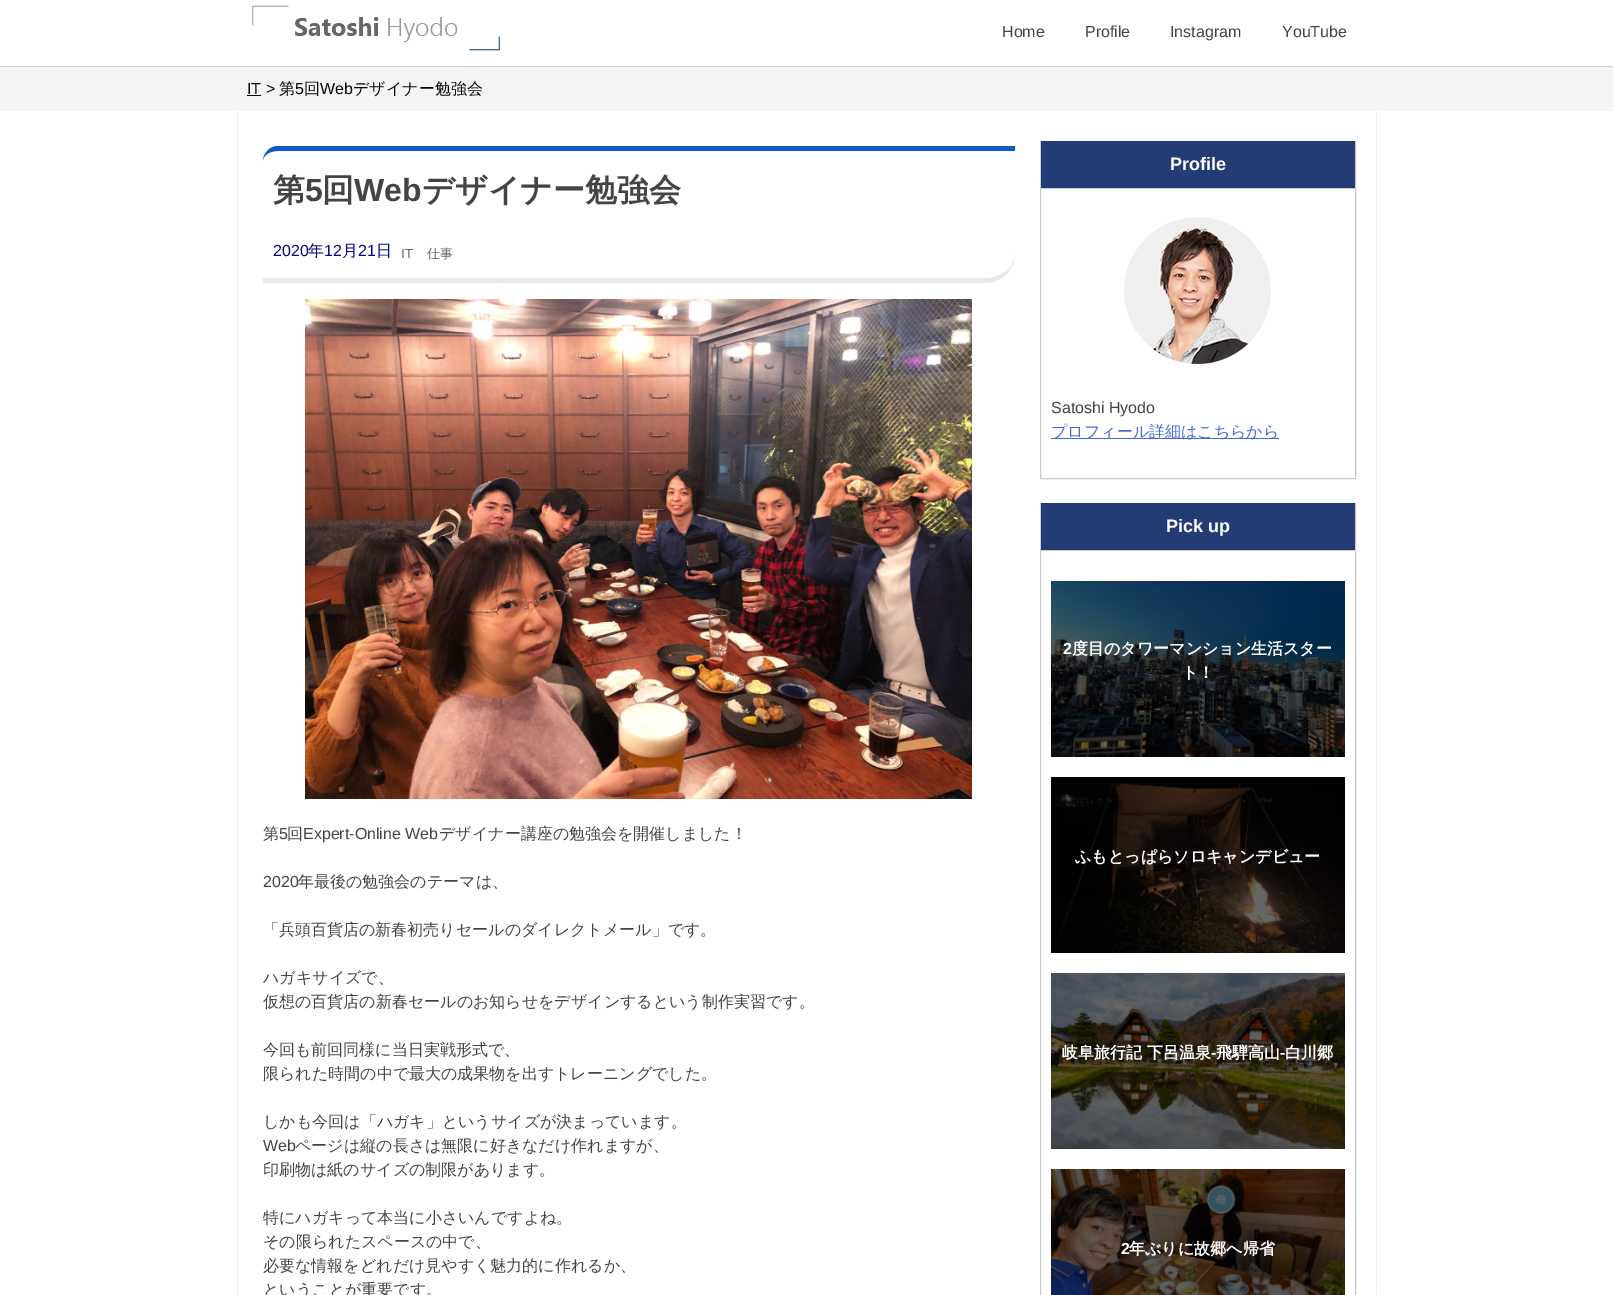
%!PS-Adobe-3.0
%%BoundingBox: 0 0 1613 1295
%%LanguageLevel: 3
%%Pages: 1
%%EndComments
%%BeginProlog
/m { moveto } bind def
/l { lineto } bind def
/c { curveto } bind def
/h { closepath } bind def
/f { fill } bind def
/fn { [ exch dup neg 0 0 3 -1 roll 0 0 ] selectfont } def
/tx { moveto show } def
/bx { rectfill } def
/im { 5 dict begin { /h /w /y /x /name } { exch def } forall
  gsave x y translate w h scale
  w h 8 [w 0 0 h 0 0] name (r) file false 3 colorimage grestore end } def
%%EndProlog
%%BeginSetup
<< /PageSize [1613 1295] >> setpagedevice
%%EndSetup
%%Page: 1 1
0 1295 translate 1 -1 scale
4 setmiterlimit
1 setgray
0 0 1613 1295 bx
0.8 setgray
0 66 1613 1 bx
(image0.raw) 252 5 248 46 im
/LiberationSans-Regular 16 fn
0.267 setgray
(Home) 1002 37 tx
(Profile) 1085 37 tx
(Instagram) 1170 37 tx
(YouTube) 1282 37 tx
0.957 setgray
0 67 1613 44 bx
0.016 setgray
(IT >) 247 94 tx
247 95 14 1 bx
/WenQuanYiZenHei-Medium 16 fn
(第) 279 94 tx
/LiberationSans-Regular 16 fn
(5) 295 94 tx
/WenQuanYiZenHei-Medium 16 fn
(回) 304 94 tx
/LiberationSans-Regular 16 fn
(Web) 320 94 tx
/WenQuanYiZenHei-Medium 16 fn
(デザイナー勉強会) 353 94 tx
0.933 setgray
1376 111 1 1184 bx
237 111 1 1184 bx
0.067 0.353 0.776 setrgbcolor
278 151 m 1015 151 l 1015 146 l 278 146 l 270 146 263 153 263 161 c 263 155 270 151 278 151 c h f
0.914 setgray
263 278 m 263 283 l 985 283 l 1002 283 1015 270 1015 253 c 1015 267 1002 278 985 278 c h f
/WenQuanYiZenHei-Bold 32 fn
0.267 setgray
(第) 273 201 tx
/LiberationSans-Bold 32 fn
(5) 305 201 tx
/WenQuanYiZenHei-Bold 32 fn
(回) 322 201 tx
/LiberationSans-Bold 32 fn
(Web) 354 201 tx
/WenQuanYiZenHei-Bold 32 fn
(デザイナー勉強会) 422 201 tx
/LiberationSans-Regular 16 fn
0.027 0.035 0.498 setrgbcolor
(2020) 273 256 tx
/WenQuanYiZenHei-Medium 16 fn
(年) 308 256 tx
/LiberationSans-Regular 16 fn
(12) 324 256 tx
/WenQuanYiZenHei-Medium 16 fn
(月) 342 256 tx
/LiberationSans-Regular 16 fn
(21) 358 256 tx
/WenQuanYiZenHei-Medium 16 fn
(日) 376 256 tx
/LiberationSans-Regular 13 fn
0.412 setgray
(IT) 401 258 tx
/WenQuanYiZenHei-Medium 13 fn
(仕事) 427 258 tx
(image1.raw) 305 299 667 500 im
/WenQuanYiZenHei-Medium 16 fn
0.267 setgray
(第) 263 839 tx
/LiberationSans-Regular 16 fn
(5) 279 839 tx
/WenQuanYiZenHei-Medium 16 fn
(回) 287 839 tx
/LiberationSans-Regular 16 fn
(Expert-Online Web) 303 839 tx
/WenQuanYiZenHei-Medium 16 fn
(デザイナー講座の勉強会を開催しました！) 439 839 tx
/LiberationSans-Regular 16 fn
(2020) 263 887 tx
/WenQuanYiZenHei-Medium 16 fn
(年最後の勉強会のテーマは、) 298 887 tx
(「兵頭百貨店の新春初売りセールのダイレクトメール」です。) 263 935 tx
(ハガキサイズで、) 263 983 tx
(仮想の百貨店の新春セールのお知らせをデザインするという制作実習です。) 263 1007 tx
(今回も前回同様に当日実戦形式で、) 263 1055 tx
(限られた時間の中で最大の成果物を出すトレーニングでした。) 263 1079 tx
(しかも今回は「ハガキ」というサイズが決まっています。) 263 1127 tx
/LiberationSans-Regular 16 fn
(Web) 263 1151 tx
/WenQuanYiZenHei-Medium 16 fn
(ページは縦の長さは無限に好きなだけ作れますが、) 295 1151 tx
(印刷物は紙のサイズの制限があります。) 263 1175 tx
(特にハガキって本当に小さいんですよね。) 263 1223 tx
(その限られたスペースの中で、) 263 1247 tx
(必要な情報をどれだけ見やすく魅力的に作れるか、) 263 1271 tx
(ということが重要です。) 263 1295 tx
0.8 setgray
1040.5 141.5 315 337 rectstroke
0.141 0.235 0.463 setrgbcolor
1041 141 314 47 bx
0.8 setgray
1041 188 314 1 bx
/LiberationSans-Bold 18 fn
1 setgray
(Profile) 1170 170 tx
(image2.raw) 1124 217 147 147 im
/LiberationSans-Regular 16 fn
0.267 setgray
(Satoshi Hyodo) 1051 413 tx
0.255 0.412 0.882 setrgbcolor
1051 438 228 1 bx
/WenQuanYiZenHei-Medium 16 fn
(プロフィール詳細はこちらから) 1051 437 tx
0.8 setgray
1040.5 503.5 315 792 rectstroke
0.141 0.235 0.463 setrgbcolor
1041 503 314 47 bx
0.8 setgray
1041 550 314 1 bx
/LiberationSans-Bold 18 fn
1 setgray
(Pick up) 1166 532 tx
(image3.raw) 1051 581 294 176 im
/LiberationSans-Bold 16 fn
(2) 1063 654 tx
/WenQuanYiZenHei-Bold 16 fn
(度目のタワーマンション生活スター) 1072 654 tx
(ト！) 1182 678 tx
(image4.raw) 1051 777 294 176 im
(ふもとっぱらソロキャンデビュー) 1075 862 tx
(image5.raw) 1051 973 294 176 im
(岐阜旅行記 下呂温泉) 1062 1058 tx
/LiberationSans-Bold 16 fn
(-) 1211 1058 tx
/WenQuanYiZenHei-Bold 16 fn
(飛騨高山) 1216 1058 tx
/LiberationSans-Bold 16 fn
(-) 1280 1058 tx
/WenQuanYiZenHei-Bold 16 fn
(白川郷) 1285 1058 tx
(image6.raw) 1051 1169 294 126 im
/LiberationSans-Bold 16 fn
(2) 1121 1254 tx
/WenQuanYiZenHei-Bold 16 fn
(年ぶりに故郷へ帰省) 1129 1254 tx
showpage
%%EOF
